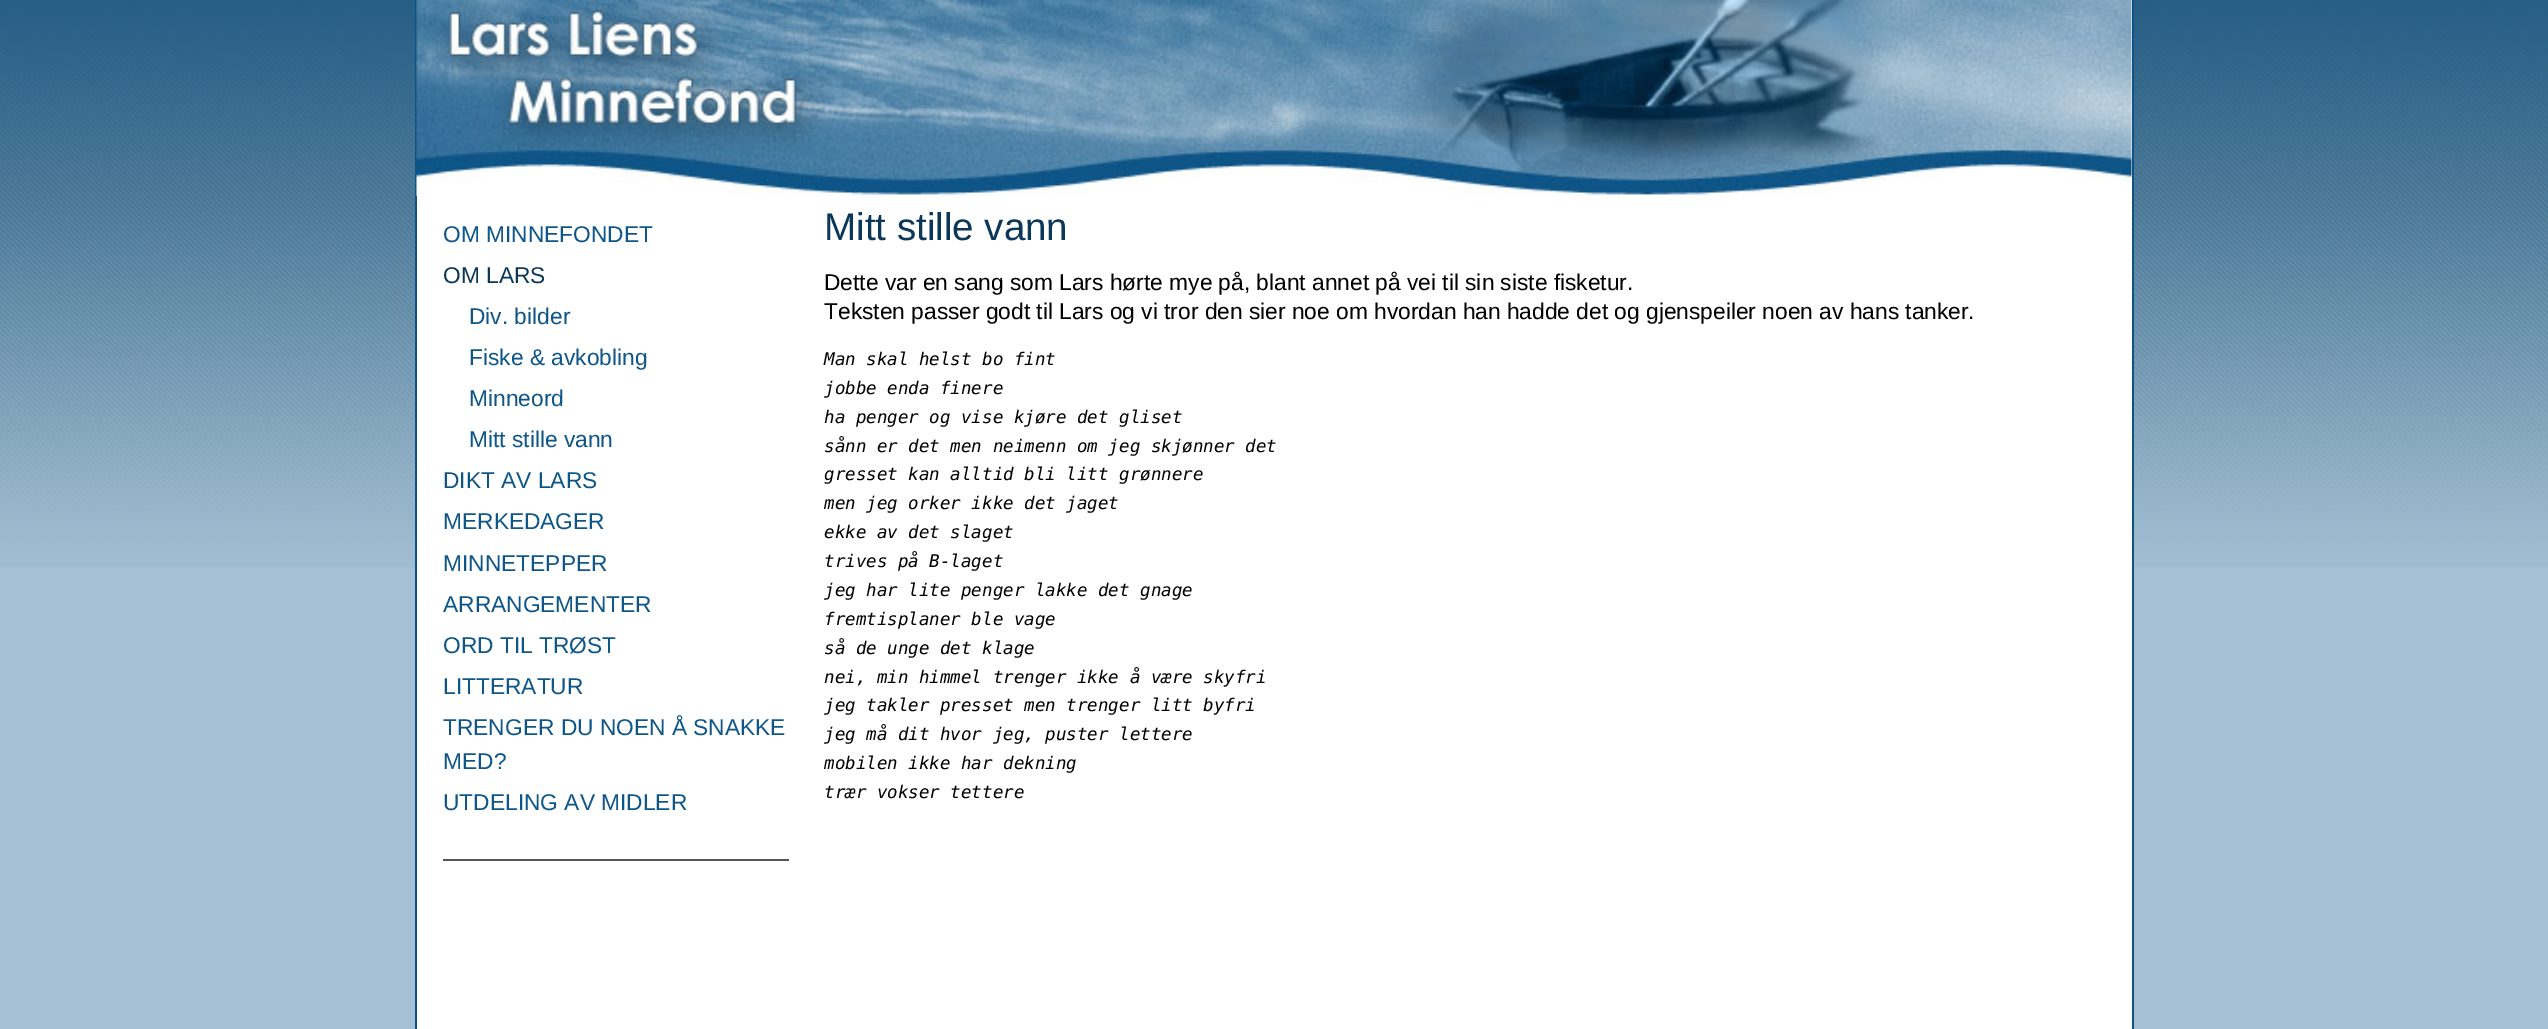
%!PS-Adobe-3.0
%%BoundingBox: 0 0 2548 1029
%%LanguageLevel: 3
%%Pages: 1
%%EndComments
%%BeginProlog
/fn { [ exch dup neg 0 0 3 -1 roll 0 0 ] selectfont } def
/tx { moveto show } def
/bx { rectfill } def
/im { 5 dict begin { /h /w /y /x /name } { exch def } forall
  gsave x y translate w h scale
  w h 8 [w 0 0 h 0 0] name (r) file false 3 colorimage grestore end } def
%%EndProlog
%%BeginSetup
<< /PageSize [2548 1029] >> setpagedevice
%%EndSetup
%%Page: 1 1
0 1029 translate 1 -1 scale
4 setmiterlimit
0.647 0.753 0.824 setrgbcolor
0 0 2548 1029 bx
(image0.raw) 0 0 2548 567 im
1 setgray
417 0 1715 1029 bx
0.051 0.325 0.525 setrgbcolor
2132 0 2 1029 bx
415 0 2 1029 bx
(image1.raw) 416 0 1716 196 im
/LiberationSans-Regular 22.75 fn
0.055 0.337 0.533 setrgbcolor
(OM MINNEFONDET) 443 242 tx
0.043 0.216 0.345 setrgbcolor
(OM LARS) 443 283 tx
0.055 0.337 0.533 setrgbcolor
(Div. bilder) 469 324 tx
(Fiske & avkobling) 469 365 tx
(Minneord) 469 406 tx
(Mitt stille vann) 469 447 tx
(DIKT AV LARS) 443 488 tx
(MERKEDAGER) 443 529 tx
(MINNETEPPER) 443 571 tx
(ARRANGEMENTER) 443 612 tx
(ORD TIL TRØST) 443 653 tx
(LITTERATUR) 443 694 tx
(TRENGER DU NOEN Å SNAKKE) 443 735 tx
(MED?) 443 769 tx
(UTDELING AV MIDLER) 443 810 tx
0.333 setgray
443 859 346 2 bx
/LiberationSans-Regular 38.5 fn
0.043 0.216 0.345 setrgbcolor
(Mitt stille vann) 824 240 tx
/LiberationSans-Regular 22.75 fn
0 setgray
(Dette var en sang som Lars hørte mye på, blant annet på vei til sin siste fisketur.) 824 290 tx
(Teksten passer godt til Lars og vi tror den sier noe om hvordan han hadde det og gjenspeiler noen av hans tanker.) 824 319 tx
/DejaVuSansMono-Italic 17.5 fn
(Man skal helst bo fint) 824 365 tx
(jobbe enda finere) 824 394 tx
(ha penger og vise kjøre det gliset) 824 423 tx
(sånn er det men neimenn om jeg skjønner det) 824 452 tx
(gresset kan alltid bli litt grønnere) 824 480 tx
(men jeg orker ikke det jaget) 824 509 tx
(ekke av det slaget) 824 538 tx
(trives på B-laget) 824 567 tx
(jeg har lite penger lakke det gnage) 824 596 tx
(fremtisplaner ble vage) 824 625 tx
(så de unge det klage) 824 654 tx
(nei, min himmel trenger ikke å være skyfri) 824 683 tx
(jeg takler presset men trenger litt byfri) 824 711 tx
(jeg må dit hvor jeg, puster lettere) 824 740 tx
(mobilen ikke har dekning) 824 769 tx
(trær vokser tettere) 824 798 tx
showpage
%%EOF
